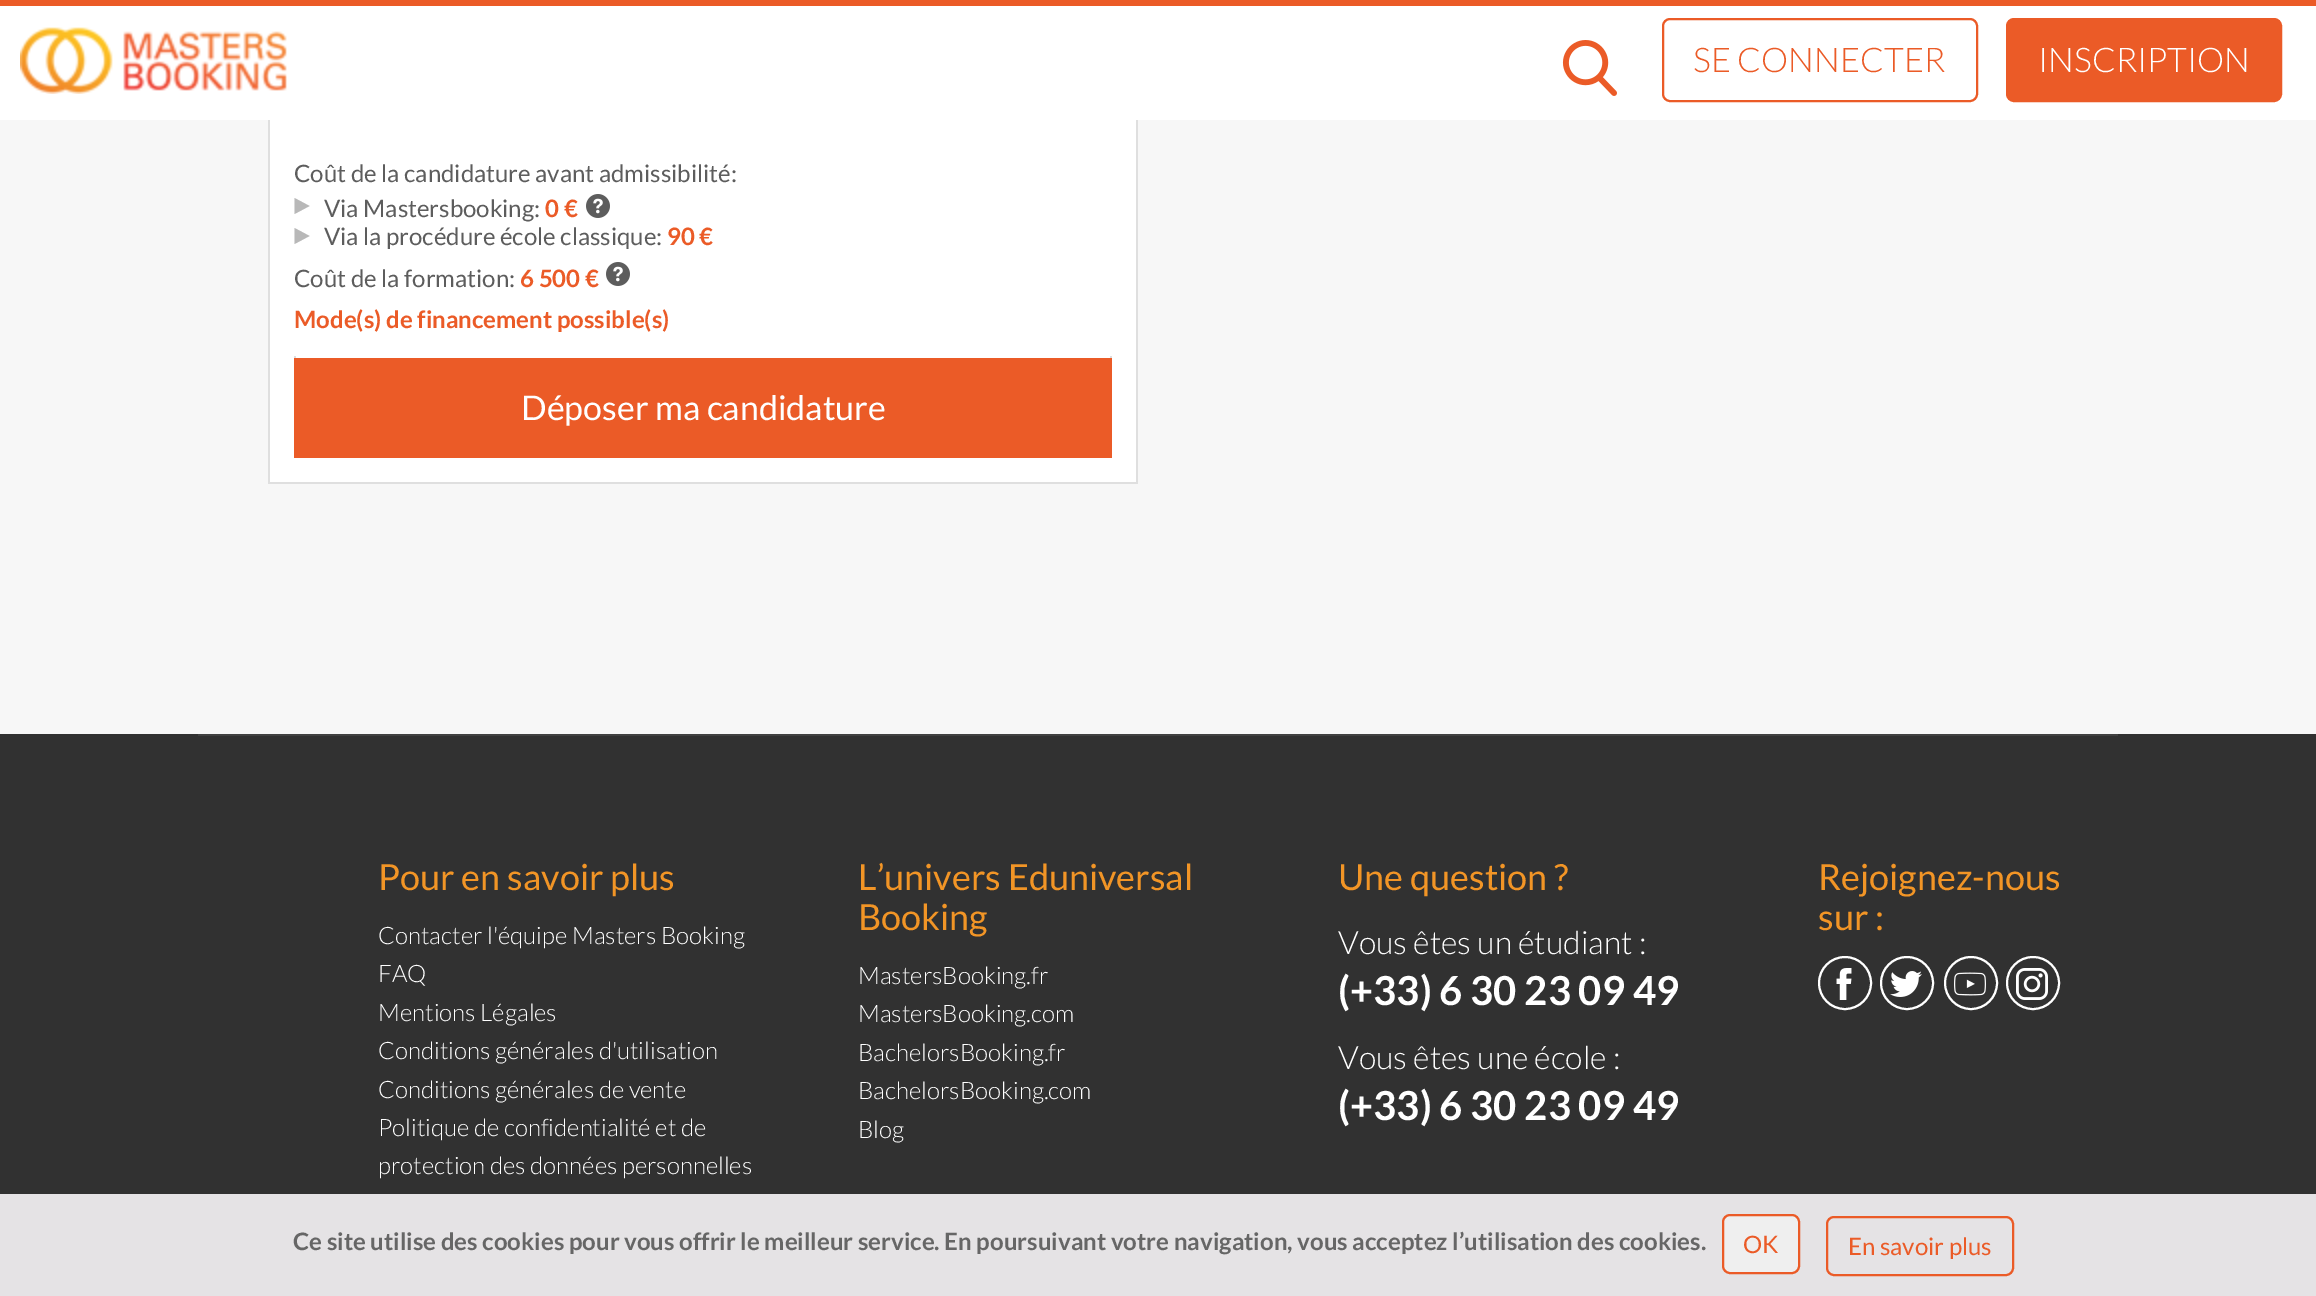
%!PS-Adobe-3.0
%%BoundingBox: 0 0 2316 1296
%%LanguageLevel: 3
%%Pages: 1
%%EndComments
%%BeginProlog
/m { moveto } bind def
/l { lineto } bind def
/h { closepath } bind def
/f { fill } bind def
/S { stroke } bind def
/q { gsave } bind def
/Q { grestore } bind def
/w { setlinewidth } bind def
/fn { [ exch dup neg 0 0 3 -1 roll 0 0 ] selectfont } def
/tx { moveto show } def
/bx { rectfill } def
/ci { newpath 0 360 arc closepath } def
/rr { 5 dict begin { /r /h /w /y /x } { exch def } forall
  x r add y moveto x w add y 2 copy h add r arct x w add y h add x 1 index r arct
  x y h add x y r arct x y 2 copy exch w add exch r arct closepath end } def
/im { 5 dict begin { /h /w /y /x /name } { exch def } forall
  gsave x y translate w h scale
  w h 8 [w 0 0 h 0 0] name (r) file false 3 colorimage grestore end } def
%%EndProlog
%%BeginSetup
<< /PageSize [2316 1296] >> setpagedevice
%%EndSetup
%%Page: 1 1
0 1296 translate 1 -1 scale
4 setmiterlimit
1 setgray
0 0 2316 1296 bx
0.922 0.357 0.153 setrgbcolor
0 0 2316 6 bx
(image0.raw) 20 27 267 67 im
(image1.raw) 1562 40 55 56 im
2 w
1663 19 314 82 7 rr S
/Lato-Light 34 fn
(SE CONNECTER) 1693 72 tx
2007 19 274 82 7 rr q f Q
S
1 setgray
(INSCRIPTION) 2038 72 tx
q 0 120 m 2316 120 l 2316 734 l 0 734 l h clip newpath
<< /ShadingType 2 /ColorSpace /DeviceRGB /Coords [1158 -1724 1158 734] /Extend [true true] /Function << /FunctionType 3 /Domain [0 1] /Functions [<< /FunctionType 2 /Domain [0 1] /C0 [0.835 0.835 0.835] /C1 [0.969 0.969 0.969] /N 1 >> << /FunctionType 2 /Domain [0 1] /C0 [0.969 0.969 0.969] /C1 [0.969 0.969 0.969] /N 1 >>] /Bounds [0.05] /Encode [0 1 0 1] >> >> shfill Q
270 120 866 362 bx
0.875 setgray
1136 120 2 364 bx
268 482 870 2 bx
268 120 2 364 bx
/Lato-Regular 24 fn
0.365 setgray
(Coût de la candidature avant admissibilité:) 294 182 tx
0.722 setgray
294.5 214 m 294.5 198 l 309.5 206 l h f
0.365 setgray
(Via Mastersbooking:) 324 217 tx
/Lato-Bold 24 fn
0.922 0.357 0.153 setrgbcolor
(0 €) 545 217 tx
(image2.raw) 586 194 24 24 im
0.722 setgray
294.5 244 m 294.5 228 l 309.5 236 l h f
/Lato-Regular 24 fn
0.365 setgray
(Via la procédure école classique:) 324 245 tx
/Lato-Bold 24 fn
0.922 0.357 0.153 setrgbcolor
(90 €) 667 245 tx
/Lato-Regular 24 fn
0.365 setgray
(Coût de la formation:) 294 287 tx
/Lato-Bold 24 fn
0.922 0.357 0.153 setrgbcolor
(6 500 €) 520 287 tx
(image2.raw) 606 262 24 24 im
(Mode\(s\) de financement possible\(s\)) 294 328 tx
0.875 setgray
1110 356 2 2 bx
294 356 2 2 bx
0.922 0.357 0.153 setrgbcolor
294 358 818 100 bx
/Lato-Regular 34 fn
1 setgray
(Déposer ma candidature) 521 420 tx
0.192 setgray
0 734 2316 460 bx
0.251 setgray
198 734 1920 2 bx
/Lato-Regular 36 fn
0.949 0.584 0.149 setrgbcolor
(Pour en savoir plus) 378 890 tx
/Lato-Light 24 fn
1 setgray
(Contacter l'équipe Masters Booking) 378 944 tx
(FAQ) 378 982 tx
(Mentions Légales) 378 1021 tx
(Conditions générales d'utilisation) 378 1059 tx
(Conditions générales de vente) 378 1098 tx
(Politique de confidentialité et de) 378 1136 tx
(protection des données personnelles) 378 1174 tx
/Lato-Regular 36 fn
0.949 0.584 0.149 setrgbcolor
(L’univers Eduniversal) 858 890 tx
(Booking) 858 930 tx
/Lato-Light 24 fn
1 setgray
(MastersBooking.fr) 858 984 tx
(MastersBooking.com) 858 1022 tx
(BachelorsBooking.fr) 858 1061 tx
(BachelorsBooking.com) 858 1099 tx
(Blog) 858 1138 tx
/Lato-Regular 36 fn
0.949 0.584 0.149 setrgbcolor
(Une question ?) 1338 890 tx
/Lato-Light 32 fn
1 setgray
(Vous êtes un étudiant :) 1338 954 tx
/Lato-Bold 40 fn
(\(+33\) 6 30 23 09 49) 1338 1005 tx
/Lato-Light 32 fn
(Vous êtes une école :) 1338 1069 tx
/Lato-Bold 40 fn
(\(+33\) 6 30 23 09 49) 1338 1120 tx
/Lato-Regular 36 fn
0.949 0.584 0.149 setrgbcolor
(Rejoignez-nous) 1818 890 tx
(sur :) 1818 930 tx
1 setgray
1845 983 26 ci S
(image3.raw) 1836 968 16 32 im
1907 983 26 ci S
(image4.raw) 1890 971 32 26 im
1971 983 26 ci S
(image5.raw) 1954 972 32 24 im
2033 983 26 ci S
(image6.raw) 2016 968 32 32 im
0.898 0.89 0.898 setrgbcolor
0 1194 2316 102 bx
/Lato-Bold 24 fn
0.4 setgray
(Ce site utilise des cookies pour vous offrir le meilleur service. En poursuivant votre navigation, vous acceptez l’utilisation des cookies.) 293 1250 tx
0.937 setgray
1723 1215 76 58 7 rr q f Q
0.922 0.357 0.153 setrgbcolor
S
/Lato-Regular 24 fn
(OK) 1743 1253 tx
1827 1217 186 58 7 rr S
(En savoir plus) 1848 1255 tx
showpage
%%EOF
